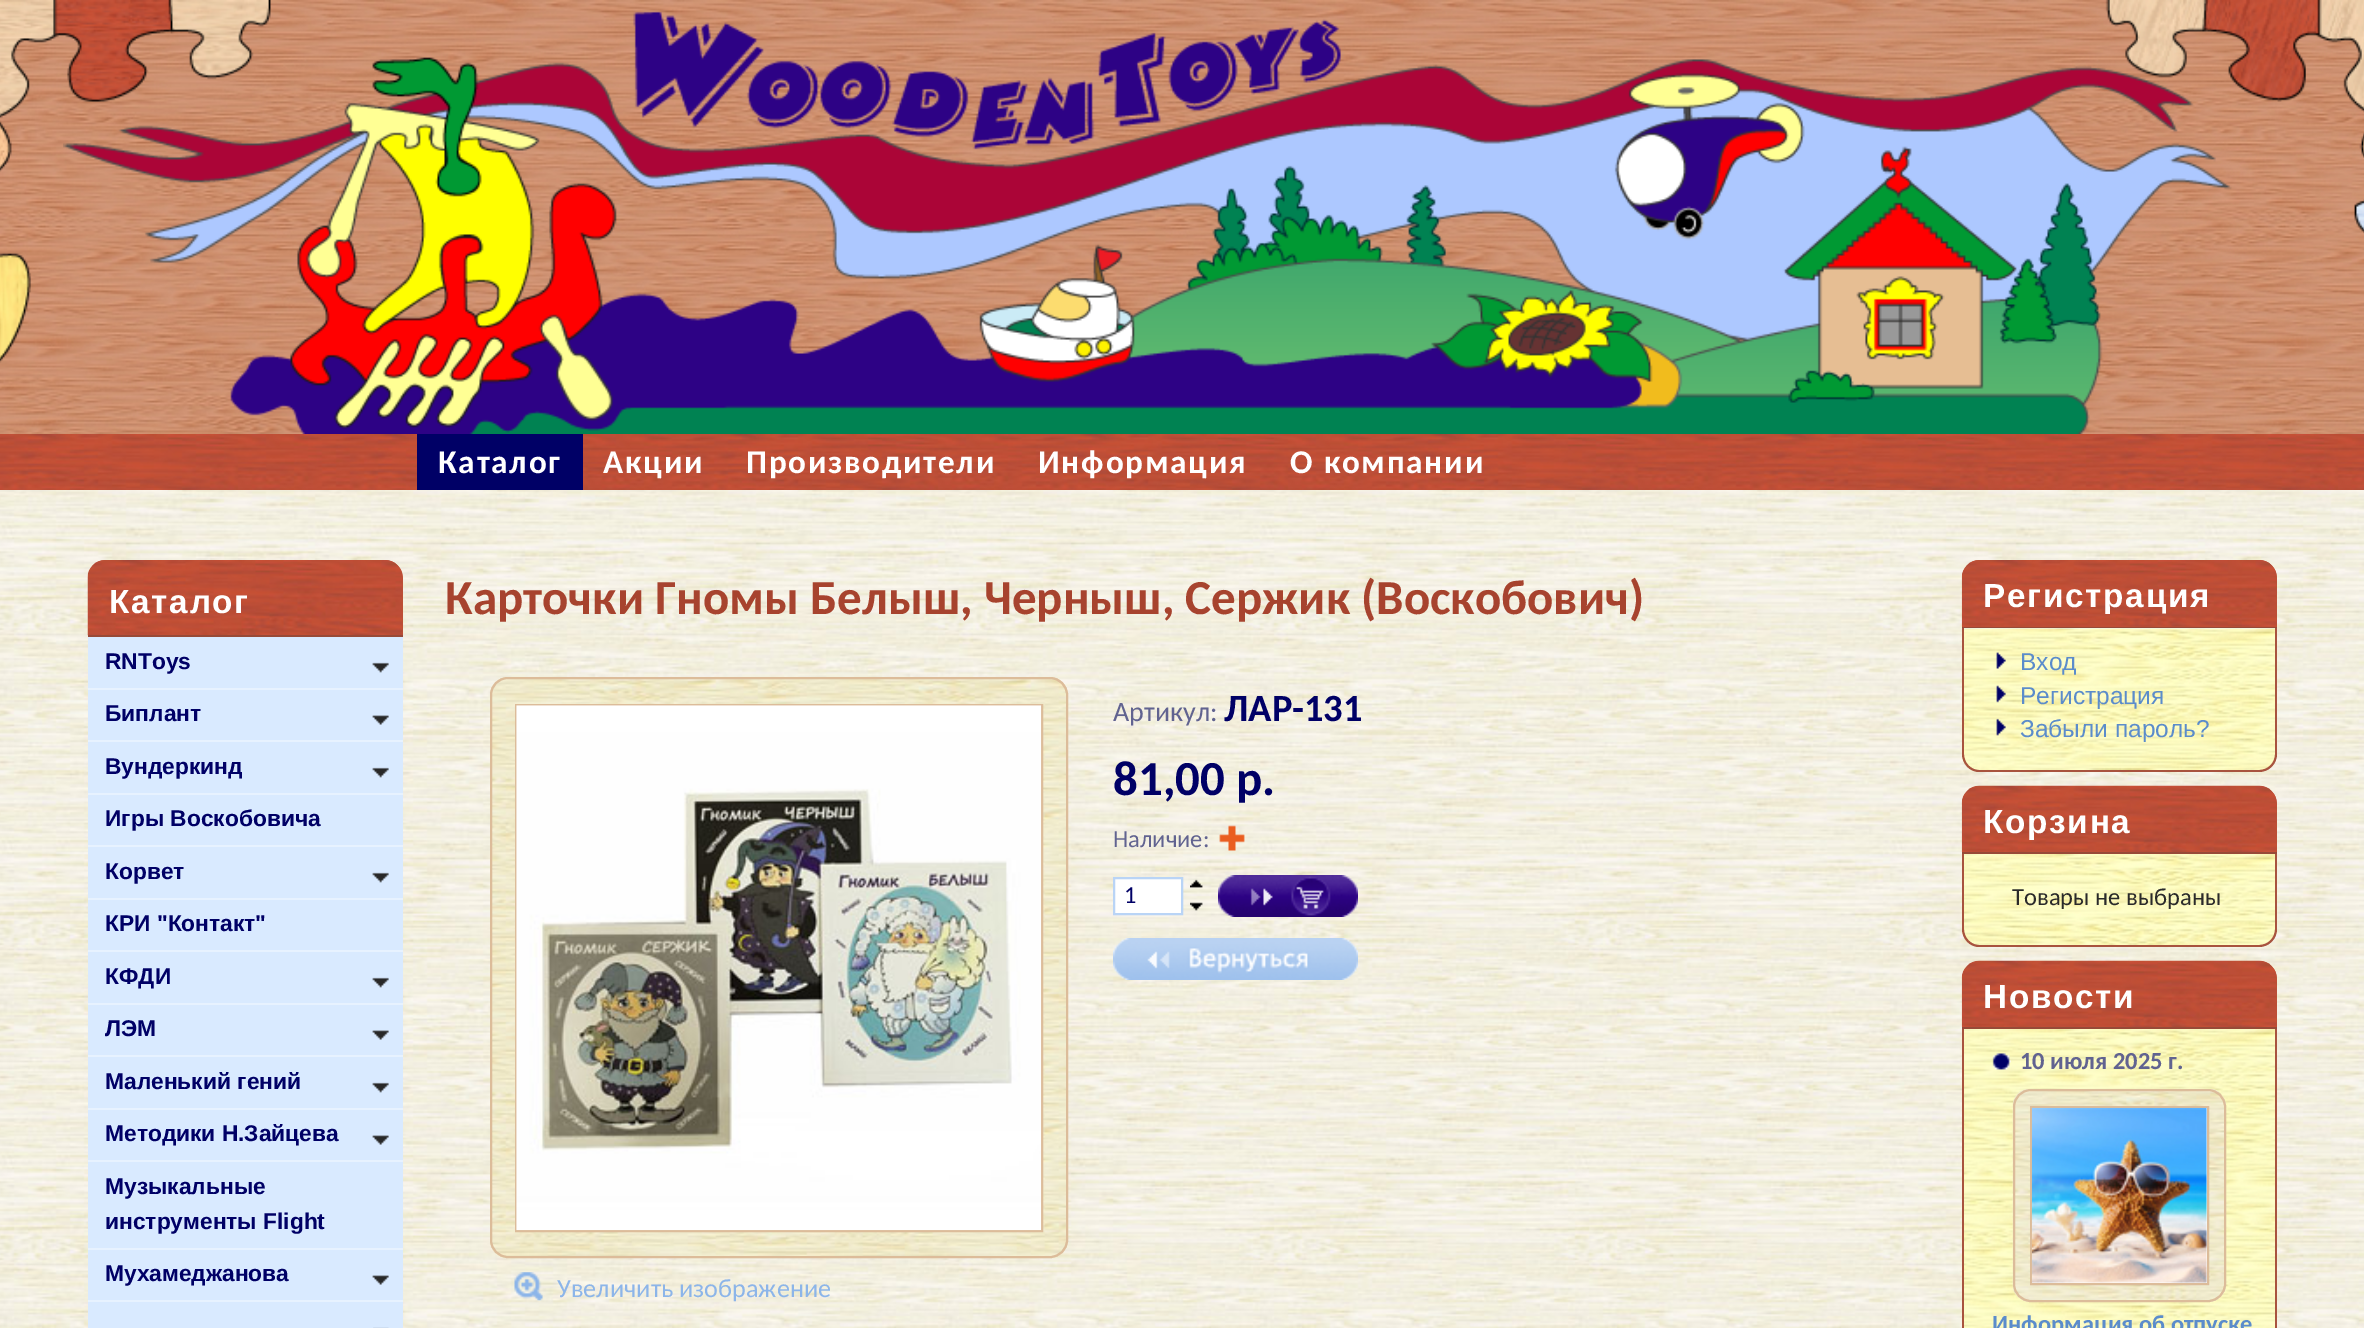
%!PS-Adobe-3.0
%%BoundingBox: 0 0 2364 1328
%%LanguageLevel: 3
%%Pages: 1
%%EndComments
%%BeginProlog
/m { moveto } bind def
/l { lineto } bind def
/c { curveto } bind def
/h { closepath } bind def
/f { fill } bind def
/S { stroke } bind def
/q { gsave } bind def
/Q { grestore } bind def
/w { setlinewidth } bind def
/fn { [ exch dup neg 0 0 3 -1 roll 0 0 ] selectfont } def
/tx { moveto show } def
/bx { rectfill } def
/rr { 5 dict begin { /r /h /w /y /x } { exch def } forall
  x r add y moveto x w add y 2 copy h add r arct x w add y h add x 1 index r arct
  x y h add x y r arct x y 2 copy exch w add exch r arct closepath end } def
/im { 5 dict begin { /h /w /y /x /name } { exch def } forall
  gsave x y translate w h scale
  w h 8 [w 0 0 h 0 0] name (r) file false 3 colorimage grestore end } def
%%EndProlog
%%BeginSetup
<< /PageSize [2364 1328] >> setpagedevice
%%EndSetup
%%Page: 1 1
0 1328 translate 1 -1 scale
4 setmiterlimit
1 setgray
0 0 2364 1328 bx
(image0.raw) 0 490 2364 838 im
(image1.raw) 0 0 2364 434 im
(image2.raw) 63 11 2169 423 im
(image3.raw) 0 0 2364 363 im
(image4.raw) 0 434 2364 56 im
0 0 0.4 setrgbcolor
417 434 166 56 bx
/Carlito-Bold 33.25 fn
1 setgray
438 473 m 1.75 0 (Каталог) ashow
603 473 m 1.75 0 (Акции) ashow
746 473 m 1.75 0 (Производители) ashow
1038 473 m 1.75 0 (Информация) ashow
1290 473 m 1.75 0 (О компании) ashow
0.737 0.314 0.212 setrgbcolor
106 560 m 385 560 l 395 560 403 568 403 578 c 403 635 l 88 635 l 88 578 l 88 568 96 560 106 560 c h f
(image5.raw) 87 560 316 76 im
/LiberationSans-Bold 33.25 fn
1 setgray
109 613 m 1.75 0 (Каталог) ashow
0.592 0.29 0.22 setrgbcolor
88 635 315 2 bx
0.851 0.918 1 setrgbcolor
88 637 315 51 bx
0.906 0.949 1 setrgbcolor
88 688 315 2 bx
/LiberationSans-Bold 22.75 fn
0 0 0.4 setrgbcolor
(RNToys) 105 669 tx
(image6.raw) 372 662 17 11 im
0.851 0.918 1 setrgbcolor
88 690 315 50 bx
0.906 0.949 1 setrgbcolor
88 740 315 2 bx
0 0 0.4 setrgbcolor
(Биплант) 105 721 tx
(image7.raw) 372 715 17 10 im
0.851 0.918 1 setrgbcolor
88 742 315 51 bx
0.906 0.949 1 setrgbcolor
88 793 315 2 bx
0 0 0.4 setrgbcolor
(Вундеркинд) 105 774 tx
(image6.raw) 372 767 17 11 im
0.851 0.918 1 setrgbcolor
88 795 315 50 bx
0.906 0.949 1 setrgbcolor
88 845 315 2 bx
0 0 0.4 setrgbcolor
(Игры Воскобовича) 105 826 tx
0.851 0.918 1 setrgbcolor
88 847 315 51 bx
0.906 0.949 1 setrgbcolor
88 898 315 2 bx
0 0 0.4 setrgbcolor
(Корвет) 105 879 tx
(image6.raw) 372 872 17 11 im
0.851 0.918 1 setrgbcolor
88 900 315 50 bx
0.906 0.949 1 setrgbcolor
88 950 315 2 bx
0 0 0.4 setrgbcolor
(КРИ "Контакт") 105 931 tx
0.851 0.918 1 setrgbcolor
88 952 315 51 bx
0.906 0.949 1 setrgbcolor
88 1003 315 2 bx
0 0 0.4 setrgbcolor
(КФДИ) 105 984 tx
(image6.raw) 372 977 17 11 im
0.851 0.918 1 setrgbcolor
88 1005 315 50 bx
0.906 0.949 1 setrgbcolor
88 1055 315 2 bx
0 0 0.4 setrgbcolor
(ЛЭМ) 105 1036 tx
(image7.raw) 372 1030 17 10 im
0.851 0.918 1 setrgbcolor
88 1057 315 51 bx
0.906 0.949 1 setrgbcolor
88 1108 315 2 bx
0 0 0.4 setrgbcolor
(Маленький гений) 105 1089 tx
(image6.raw) 372 1082 17 11 im
0.851 0.918 1 setrgbcolor
88 1110 315 50 bx
0.906 0.949 1 setrgbcolor
88 1160 315 2 bx
0 0 0.4 setrgbcolor
(Методики Н.Зайцева) 105 1141 tx
(image7.raw) 372 1135 17 10 im
0.851 0.918 1 setrgbcolor
88 1162 315 86 bx
0.906 0.949 1 setrgbcolor
88 1248 315 2 bx
0 0 0.4 setrgbcolor
(Музыкальные) 105 1194 tx
(инструменты Flight) 105 1229 tx
0.851 0.918 1 setrgbcolor
88 1250 315 50 bx
0.906 0.949 1 setrgbcolor
88 1300 315 2 bx
0 0 0.4 setrgbcolor
(Мухамеджанова) 105 1281 tx
(image7.raw) 372 1275 17 10 im
0.851 0.918 1 setrgbcolor
88 1302 315 26 bx
(image8.raw) 373 1327 16 1 im
/Carlito-Bold 49 fn
0.655 0.263 0.18 setrgbcolor
(Карточки Гномы Белыш, Черныш, Сержик \(Воскобович\)) 445 614 tx
/Carlito-Regular 28 fn
0.38 0.388 0.565 setrgbcolor
(Артикул:) 1113 721 tx
/Carlito-Bold 38.5 fn
0 0 0.4 setrgbcolor
(ЛАР-131) 1224 721 tx
/Carlito-Bold 49 fn
(81,00 р.) 1113 795 tx
/Carlito-Regular 24.5 fn
0.38 0.388 0.565 setrgbcolor
(Наличие:) 1113 847 tx
(image9.raw) 1219 825 26 26 im
(image10.raw) 1190 879 13 9 im
1 setgray
1114 878 m 1182 878 l 1182 914 l 1114 914 l h q f Q
0.725 0.831 0.965 setrgbcolor
2 w
S
0 0 0.4 setrgbcolor
(1) 1124 903 tx
(image11.raw) 1190 902 13 9 im
(image12.raw) 1218 875 140 42 im
(image13.raw) 1113 938 245 42 im
(image14.raw) 490 677 578 581 im
0.863 0.737 0.604 setrgbcolor
491 678 576 579 17 rr S
516 705 526 526 rectstroke
(image15.raw) 516 705 526 526 im
(image16.raw) 514 1272 29 29 im
/Carlito-Regular 26.25 fn
0.549 0.71 0.914 setrgbcolor
(Увеличить изображение) 557 1297 tx
0.737 0.314 0.212 setrgbcolor
1980 560 m 2259 560 l 2269 560 2277 568 2277 578 c 2277 627 l 1962 627 l 1962 578 l 1962 568 1970 560 1980 560 c h f
(image17.raw) 1961 560 316 67 im
/LiberationSans-Bold 33.25 fn
1 setgray
1983 607 m 1.75 0 (Регистрация) ashow
0.592 0.29 0.22 setrgbcolor
1962 627 315 1 bx
0.906 0.949 1 setrgbcolor
1962 628 m 2277 628 l 2277 754 l 2277 764 2269 772 2259 772 c 1980 772 l 1970 772 1962 764 1962 754 c h f
(image18.raw) 1962 628 315 144 im
0.659 0.325 0.243 setrgbcolor
1962 628 m 2277 628 l 2277 754 l 2277 764 2269 772 2259 772 c 1979 772 l 1970 772 1962 764 1962 754 c h 1964 628 m 2275 628 l 2275 754 l 2275 763 2268 770 2259 770 c 1979 770 l 1971 770 1964 763 1964 754 c h eofill
(image19.raw) 1996 652 10 17 im
/LiberationSans-Regular 24.5 fn
0.357 0.549 0.796 setrgbcolor
(Вход) 2020 670 tx
(image20.raw) 1996 685 10 18 im
(Регистрация) 2020 704 tx
(image21.raw) 1996 718 10 18 im
(Забыли пароль?) 2020 737 tx
0.737 0.314 0.212 setrgbcolor
1980 786 m 2259 786 l 2269 786 2277 794 2277 804 c 2277 852 l 1962 852 l 1962 804 l 1962 794 1970 786 1980 786 c h f
(image22.raw) 1961 785 316 67 im
/LiberationSans-Bold 33.25 fn
1 setgray
1983 833 m 1.75 0 (Корзина) ashow
0.592 0.29 0.22 setrgbcolor
1962 852 315 2 bx
(image23.raw) 1962 854 315 93 im
0.659 0.325 0.243 setrgbcolor
1962 854 m 2277 854 l 2277 929 l 2277 939 2269 947 2259 947 c 1979 947 l 1970 947 1962 939 1962 929 c h 1964 854 m 2275 854 l 2275 929 l 2275 938 2268 945 2259 945 c 1979 945 l 1971 945 1964 938 1964 929 c h eofill
/Carlito-Regular 24.5 fn
0.165 setgray
(Товары не выбраны) 2012 905 tx
0.737 0.314 0.212 setrgbcolor
1980 961 m 2259 961 l 2269 961 2277 969 2277 979 c 2277 1027 l 1962 1027 l 1962 979 l 1962 969 1970 961 1980 961 c h f
(image24.raw) 1961 960 316 67 im
/LiberationSans-Bold 33.25 fn
1 setgray
1983 1008 m 1.75 0 (Новости) ashow
0.592 0.29 0.22 setrgbcolor
1962 1027 315 2 bx
(image25.raw) 1964 1029 311 299 im
0.659 0.325 0.243 setrgbcolor
1962 1029 m 2277 1029 l 2277 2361 l 2277 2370 2269 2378 2259 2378 c 1979 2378 l 1970 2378 1962 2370 1962 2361 c h 1964 1029 m 2275 1029 l 2275 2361 l 2275 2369 2268 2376 2259 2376 c 1979 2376 l 1971 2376 1964 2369 1964 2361 c h eofill
(image26.raw) 1992 1053 19 17 im
/Carlito-Bold 24.5 fn
0.38 0.388 0.565 setrgbcolor
(10 июля 2025 г.) 2020 1069 tx
(image27.raw) 2012 1088 214 214 im
0.863 0.737 0.604 setrgbcolor
2014 1090 211 211 17 rr S
1 setgray
2031 1107 m 2208 1107 l 2208 1284 l 2031 1284 l h q f Q
0.863 0.737 0.604 setrgbcolor
S
(image28.raw) 2031 1107 176 176 im
0.357 0.549 0.796 setrgbcolor
(Информация об отпуске) 1992 1332 tx
showpage
%%EOF
